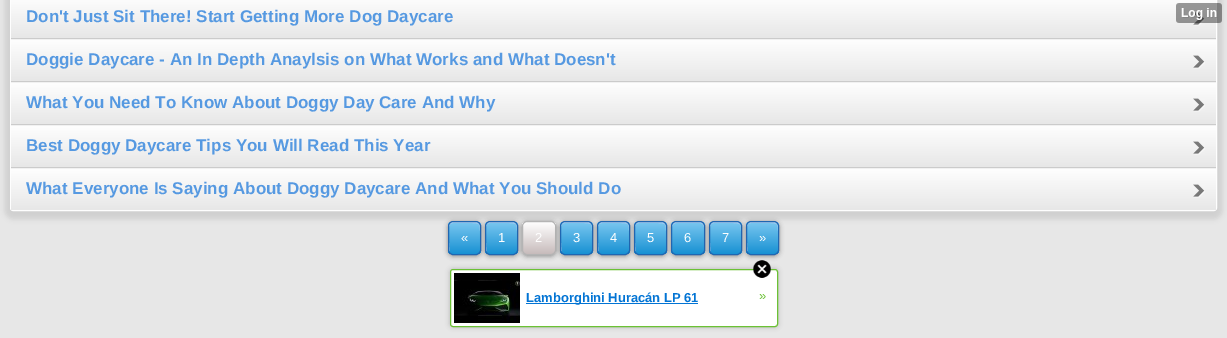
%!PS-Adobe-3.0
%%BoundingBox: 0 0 1227 338
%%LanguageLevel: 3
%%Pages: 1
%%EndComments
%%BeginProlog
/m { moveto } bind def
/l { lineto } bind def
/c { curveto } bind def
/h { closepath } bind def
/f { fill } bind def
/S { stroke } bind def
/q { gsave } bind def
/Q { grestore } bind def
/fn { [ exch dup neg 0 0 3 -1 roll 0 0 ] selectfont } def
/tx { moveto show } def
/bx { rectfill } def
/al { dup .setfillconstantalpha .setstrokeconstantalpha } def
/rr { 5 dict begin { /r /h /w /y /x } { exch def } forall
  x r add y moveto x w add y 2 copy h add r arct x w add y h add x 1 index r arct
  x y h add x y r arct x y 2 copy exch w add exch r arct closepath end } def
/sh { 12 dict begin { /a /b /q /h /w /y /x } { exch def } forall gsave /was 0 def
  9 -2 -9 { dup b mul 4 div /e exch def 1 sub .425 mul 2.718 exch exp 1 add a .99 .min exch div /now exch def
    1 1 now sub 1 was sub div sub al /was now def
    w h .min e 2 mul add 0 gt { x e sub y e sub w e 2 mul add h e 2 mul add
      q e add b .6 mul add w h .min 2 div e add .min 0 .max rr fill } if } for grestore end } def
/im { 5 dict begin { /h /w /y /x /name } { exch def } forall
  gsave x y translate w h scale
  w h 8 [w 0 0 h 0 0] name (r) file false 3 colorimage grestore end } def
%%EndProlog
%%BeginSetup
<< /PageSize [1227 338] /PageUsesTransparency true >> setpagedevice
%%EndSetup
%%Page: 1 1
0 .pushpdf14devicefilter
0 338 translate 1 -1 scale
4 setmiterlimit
0.906 setgray
0 0 1227 338 bx
0 setgray
5 -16 1217 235 8 2.5 0.1 sh
0.996 setgray
10.5 -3.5 1206 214 2.5 rr S
q 11 0 m 1216 0 l 1216 38 l 11 38 l h clip newpath
<< /ShadingType 2 /ColorSpace /DeviceRGB /Coords [614 -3 614 38] /Extend [true true] /Function << /FunctionType 2 /Domain [0 1] /C0 [0.996 0.996 0.996] /C1 [0.906 0.906 0.906] /N 1 >> >> shfill Q
0.796 setgray
11 38 1205 1 bx
/LiberationSans-Bold 17 fn
0.337 0.6 0.882 setrgbcolor
(Don't Just Sit There! Start Getting More Dog Daycare) 26 22 tx
(image0.raw) 1193 12 12 14 im
q 11 40 m 1216 40 l 1216 81 l 11 81 l h clip newpath
<< /ShadingType 2 /ColorSpace /DeviceRGB /Coords [614 40 614 81] /Extend [true true] /Function << /FunctionType 2 /Domain [0 1] /C0 [0.996 0.996 0.996] /C1 [0.906 0.906 0.906] /N 1 >> >> shfill Q
0.945 setgray
11 39 1205 1 bx
0.796 setgray
11 81 1205 1 bx
0.337 0.6 0.882 setrgbcolor
(Doggie Daycare - An In Depth Anaylsis on What Works and What Doesn't) 26 65 tx
(image0.raw) 1193 55 12 14 im
q 11 83 m 1216 83 l 1216 124 l 11 124 l h clip newpath
<< /ShadingType 2 /ColorSpace /DeviceRGB /Coords [614 83 614 124] /Extend [true true] /Function << /FunctionType 2 /Domain [0 1] /C0 [0.996 0.996 0.996] /C1 [0.906 0.906 0.906] /N 1 >> >> shfill Q
0.945 setgray
11 82 1205 1 bx
0.796 setgray
11 124 1205 1 bx
0.337 0.6 0.882 setrgbcolor
(What You Need To Know About Doggy Day Care And Why) 26 108 tx
(image0.raw) 1193 98 12 14 im
q 11 126 m 1216 126 l 1216 167 l 11 167 l h clip newpath
<< /ShadingType 2 /ColorSpace /DeviceRGB /Coords [614 126 614 167] /Extend [true true] /Function << /FunctionType 2 /Domain [0 1] /C0 [0.996 0.996 0.996] /C1 [0.906 0.906 0.906] /N 1 >> >> shfill Q
0.945 setgray
11 125 1205 1 bx
0.796 setgray
11 167 1205 1 bx
0.337 0.6 0.882 setrgbcolor
(Best Doggy Daycare Tips You Will Read This Year) 26 151 tx
(image0.raw) 1193 141 12 14 im
q 11 169 m 1216 169 l 1216 210 l 11 210 l h clip newpath
<< /ShadingType 2 /ColorSpace /DeviceRGB /Coords [614 169 614 210] /Extend [true true] /Function << /FunctionType 2 /Domain [0 1] /C0 [0.996 0.996 0.996] /C1 [0.906 0.906 0.906] /N 1 >> >> shfill Q
0.945 setgray
11 168 1205 1 bx
0.337 0.6 0.882 setrgbcolor
(What Everyone Is Saying About Doggy Daycare And What You Should Do) 26 194 tx
(image0.raw) 1193 184 12 14 im
0 setgray
448 222 33 34 5 2.5 0.4 sh
q
448 221 33 34 5 rr clip newpath
q 448 222 m 481 222 l 481 254 l 448 254 l h clip newpath
<< /ShadingType 2 /ColorSpace /DeviceRGB /Coords [465 222 465 254] /Extend [true true] /Function << /FunctionType 2 /Domain [0 1] /C0 [0.478 0.78 0.941] /C1 [0.094 0.569 0.827] /N 1 >> >> shfill Q
Q
0.678 0.804 0.941 setrgbcolor
453 223 m 472 223 l 480 223 480 224 480 231 c 480 226 l 480 224 478 222 476 222 c 453 222 l 451 222 449 224 449 226 c 449 226.5 l 449.5 224.5 450.5 223 453 223 c h 480 249.5 m 480 251 l h 449.5 251.5 m 449 243 l 449 245.5 448.5 249.5 449.5 251.5 c h eofill
0.125 0.4 0.694 setrgbcolor
448.5 221.5 32 33 4.5 rr S
/LiberationSans-Regular 13 fn
0.996 setgray
(«) 461 242 tx
0 setgray
485 222 33 34 5 2.5 0.4 sh
q
485 221 33 34 5 rr clip newpath
q 485 222 m 518 222 l 518 254 l 485 254 l h clip newpath
<< /ShadingType 2 /ColorSpace /DeviceRGB /Coords [502 222 502 254] /Extend [true true] /Function << /FunctionType 2 /Domain [0 1] /C0 [0.478 0.78 0.941] /C1 [0.094 0.569 0.827] /N 1 >> >> shfill Q
Q
0.678 0.804 0.941 setrgbcolor
490 223 m 509 223 l 517 223 517 224 517 231 c 517 226 l 517 224 515 222 513 222 c 490 222 l 488 222 486 224 486 226 c 486 226.5 l 486.5 224.5 487.5 223 490 223 c h 517 250 m 517 250.5 l h 486.5 251.5 m 486 243 l 486 245.5 485.5 249.5 486.5 251.5 c h eofill
0.125 0.4 0.694 setrgbcolor
485.5 221.5 32 33 4.5 rr S
0.996 setgray
(1) 498 242 tx
0 setgray
522 222 34 34 5 2.5 0.4 sh
q
522 221 34 34 5 rr clip newpath
q 522 222 m 556 222 l 556 254 l 522 254 l h clip newpath
<< /ShadingType 2 /ColorSpace /DeviceRGB /Coords [539 222 539 254] /Extend [true true] /Function << /FunctionType 2 /Domain [0 1] /C0 [1 1 1] /C1 [0.78 0.733 0.733] /N 1 >> >> shfill Q
Q
1 setgray
527 223 m 551 223 l 553 223 555 225 555 227 c 555 221.5 551.5 222 547 222 c 531 222 l 526.5 222 523 221.5 523 227 c 523 225 525 223 527 223 c h f
0.706 setgray
522.5 221.5 33 33 4.5 rr S
0.996 setgray
(2) 535 242 tx
0 setgray
560 222 33 34 5 2.5 0.4 sh
q
560 221 33 34 5 rr clip newpath
q 560 222 m 593 222 l 593 254 l 560 254 l h clip newpath
<< /ShadingType 2 /ColorSpace /DeviceRGB /Coords [577 222 577 254] /Extend [true true] /Function << /FunctionType 2 /Domain [0 1] /C0 [0.478 0.78 0.941] /C1 [0.094 0.569 0.827] /N 1 >> >> shfill Q
Q
0.678 0.804 0.941 setrgbcolor
565 223 m 584 223 l 592 223 592 224 592 231 c 592 226 l 592 224 590 222 588 222 c 565 222 l 563 222 561 224 561 226 c 561 226.5 l 561.5 224.5 562.5 223 565 223 c h 592 249.5 m 592 251 l h 561.5 251.5 m 561 243 l 561 245.5 560.5 249.5 561.5 251.5 c h eofill
0.125 0.4 0.694 setrgbcolor
560.5 221.5 32 33 4.5 rr S
0.996 setgray
(3) 573 242 tx
0 setgray
597 222 33 34 5 2.5 0.4 sh
q
597 221 33 34 5 rr clip newpath
q 597 222 m 630 222 l 630 254 l 597 254 l h clip newpath
<< /ShadingType 2 /ColorSpace /DeviceRGB /Coords [614 222 614 254] /Extend [true true] /Function << /FunctionType 2 /Domain [0 1] /C0 [0.478 0.78 0.941] /C1 [0.094 0.569 0.827] /N 1 >> >> shfill Q
Q
0.678 0.804 0.941 setrgbcolor
602 223 m 621 223 l 629 223 629 224 629 231 c 629 226 l 629 224 627 222 625 222 c 602 222 l 600 222 598 224 598 226 c 598 226.5 l 598.5 224.5 599.5 223 602 223 c h 629 250 m 629 250.5 l h 598.5 251.5 m 598 243 l 598 245.5 597.5 249.5 598.5 251.5 c h eofill
0.125 0.4 0.694 setrgbcolor
597.5 221.5 32 33 4.5 rr S
0.996 setgray
(4) 610 242 tx
0 setgray
634 222 33 34 5 2.5 0.4 sh
q
634 221 33 34 5 rr clip newpath
q 634 222 m 667 222 l 667 254 l 634 254 l h clip newpath
<< /ShadingType 2 /ColorSpace /DeviceRGB /Coords [651 222 651 254] /Extend [true true] /Function << /FunctionType 2 /Domain [0 1] /C0 [0.478 0.78 0.941] /C1 [0.094 0.569 0.827] /N 1 >> >> shfill Q
Q
0.678 0.804 0.941 setrgbcolor
639 223 m 658 223 l 666 223 666 224 666 231 c 666 226 l 666 224 664 222 662 222 c 639 222 l 637 222 635 224 635 226 c 635 226.5 l 635.5 224.5 636.5 223 639 223 c h 666 249.5 m 666 251 l h 635.5 251.5 m 635 243 l 635 245.5 634.5 249.5 635.5 251.5 c h eofill
0.125 0.4 0.694 setrgbcolor
634.5 221.5 32 33 4.5 rr S
0.996 setgray
(5) 647 242 tx
0 setgray
671 222 34 34 5 2.5 0.4 sh
q
671 221 34 34 5 rr clip newpath
q 671 222 m 705 222 l 705 254 l 671 254 l h clip newpath
<< /ShadingType 2 /ColorSpace /DeviceRGB /Coords [688 222 688 254] /Extend [true true] /Function << /FunctionType 2 /Domain [0 1] /C0 [0.478 0.78 0.941] /C1 [0.094 0.569 0.827] /N 1 >> >> shfill Q
Q
0.678 0.804 0.941 setrgbcolor
676 223 m 700 223 l 702 223 704 225 704 227 c 704 221.5 700.5 222 696 222 c 680 222 l 675.5 222 672 221.5 672 227 c 672 225 674 223 676 223 c h f
0.125 0.4 0.694 setrgbcolor
671.5 221.5 33 33 4.5 rr S
0.996 setgray
(6) 684 242 tx
0 setgray
709 222 33 34 5 2.5 0.4 sh
q
709 221 33 34 5 rr clip newpath
q 709 222 m 742 222 l 742 254 l 709 254 l h clip newpath
<< /ShadingType 2 /ColorSpace /DeviceRGB /Coords [726 222 726 254] /Extend [true true] /Function << /FunctionType 2 /Domain [0 1] /C0 [0.478 0.78 0.941] /C1 [0.094 0.569 0.827] /N 1 >> >> shfill Q
Q
0.678 0.804 0.941 setrgbcolor
714 223 m 733 223 l 741 223 741 224 741 231 c 741 226 l 741 224 739 222 737 222 c 714 222 l 712 222 710 224 710 226 c 710 226.5 l 710.5 224.5 711.5 223 714 223 c h 741 250 m 741 250.5 l h 710.5 251.5 m 710 243 l 710 245.5 709.5 249.5 710.5 251.5 c h eofill
0.125 0.4 0.694 setrgbcolor
709.5 221.5 32 33 4.5 rr S
0.996 setgray
(7) 722 242 tx
0 setgray
746 222 33 34 5 2.5 0.4 sh
q
746 221 33 34 5 rr clip newpath
q 746 222 m 779 222 l 779 254 l 746 254 l h clip newpath
<< /ShadingType 2 /ColorSpace /DeviceRGB /Coords [763 222 763 254] /Extend [true true] /Function << /FunctionType 2 /Domain [0 1] /C0 [0.478 0.78 0.941] /C1 [0.094 0.569 0.827] /N 1 >> >> shfill Q
Q
0.678 0.804 0.941 setrgbcolor
751 223 m 770 223 l 778 223 778 224 778 231 c 778 226 l 778 224 776 222 774 222 c 751 222 l 749 222 747 224 747 226 c 747 226.5 l 747.5 224.5 748.5 223 751 223 c h 778 249.5 m 778 251 l h 747.5 251.5 m 747 243 l 747 245.5 746.5 249.5 747.5 251.5 c h eofill
0.125 0.4 0.694 setrgbcolor
746.5 221.5 32 33 4.5 rr S
0.996 setgray
(») 759 242 tx
(image1.raw) 1176 3 46 20 im
0 setgray
450 269 328 58 3 2.5 0.2 sh
1 setgray
450.5 269.5 327 57 2.5 rr q f Q
0.42 0.757 0.208 setrgbcolor
S
(image2.raw) 753 260 18 18 im
(image3.raw) 454 273 66 50 im
0.008 0.455 0.831 setrgbcolor
526 303 172 1 bx
/LiberationSans-Bold 13 fn
(Lamborghini Huracán LP 61) 526 302 tx
/LiberationSans-Regular 13 fn
0.42 0.757 0.208 setrgbcolor
(») 759 300 tx
.poppdf14devicefilter showpage
%%EOF
